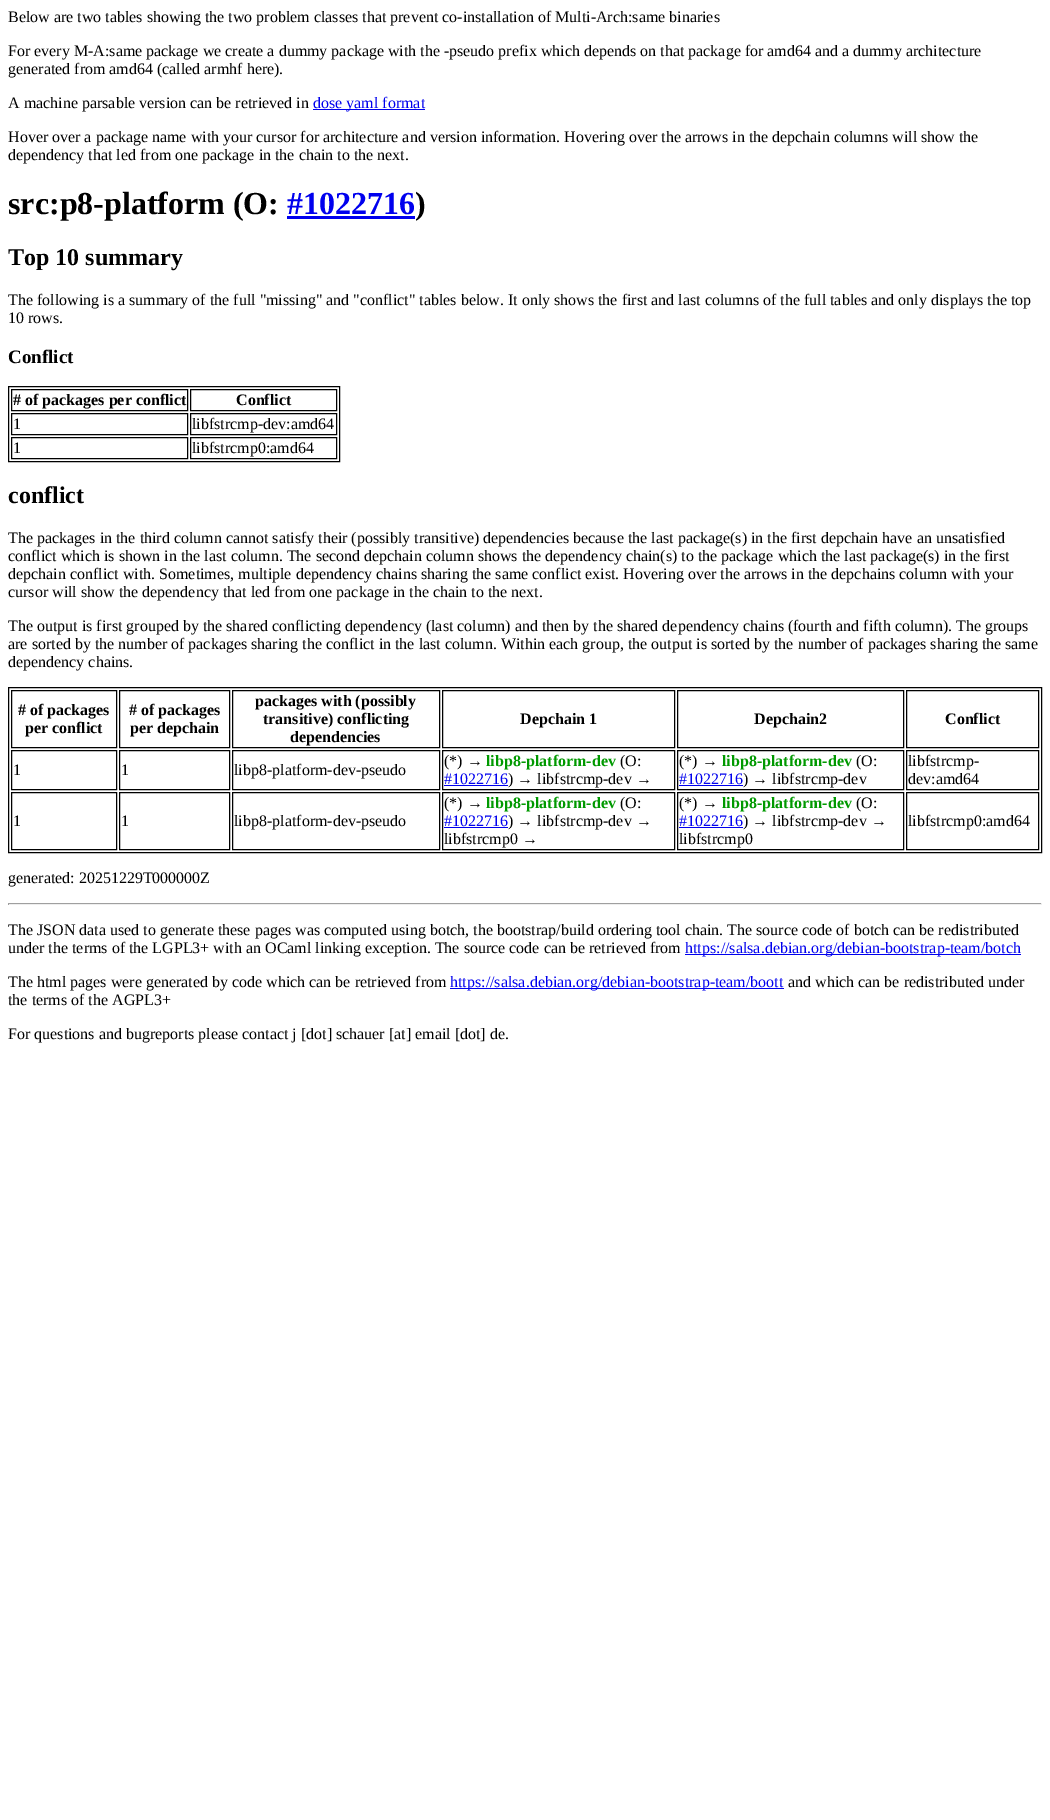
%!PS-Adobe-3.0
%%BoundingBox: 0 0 1050 1820
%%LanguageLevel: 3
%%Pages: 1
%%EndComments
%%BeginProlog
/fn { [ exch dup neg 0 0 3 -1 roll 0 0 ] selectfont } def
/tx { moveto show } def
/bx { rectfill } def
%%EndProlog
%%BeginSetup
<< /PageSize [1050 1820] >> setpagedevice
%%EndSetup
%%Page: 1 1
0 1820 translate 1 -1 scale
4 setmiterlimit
1 setgray
0 0 1050 1820 bx
/LiberationSerif-Regular 16 fn
0 setgray
(Below are two tables showing the two problem classes that prevent co-installation of Multi-Arch:same binaries) 8 22 tx
(For every M-A:same package we create a dummy package with the -pseudo prefix which depends on that package for amd64 and a dummy architecture) 8 56 tx
(generated from amd64 \(called armhf here\).) 8 74 tx
(A machine parsable version can be retrieved in) 8 108 tx
0 0 0.933 setrgbcolor
313 109 112 1 bx
(dose yaml format) 313 108 tx
0 setgray
(Hover over a package name with your cursor for architecture and version information. Hovering over the arrows in the depchain columns will show the) 8 142 tx
(dependency that led from one package in the chain to the next.) 8 160 tx
/LiberationSerif-Bold 32 fn
(src:p8-platform \(O:) 8 214 tx
0 0 0.933 setrgbcolor
(#1022716) 287 214 tx
287 216 128 3 bx
0 setgray
(\)) 415 214 tx
/LiberationSerif-Bold 24 fn
(Top 10 summary) 8 265 tx
/LiberationSerif-Regular 16 fn
(The following is a summary of the full "missing" and "conflict" tables below. It only shows the first and last columns of the full tables and only displays the top) 8 305 tx
(10 rows.) 8 323 tx
/LiberationSerif-Bold 19 fn
(Conflict) 8 363 tx
8.5 386.5 331 75 rectstroke
11.5 389.5 176 21 rectstroke
/LiberationSerif-Bold 16 fn
(# of packages per conflict) 13 405 tx
190.5 389.5 146 21 rectstroke
(Conflict) 236 405 tx
11.5 413.5 176 21 rectstroke
/LiberationSerif-Regular 16 fn
(1) 13 429 tx
190.5 413.5 146 21 rectstroke
(libfstrcmp-dev:amd64) 192 429 tx
11.5 437.5 176 21 rectstroke
(1) 13 453 tx
190.5 437.5 146 21 rectstroke
(libfstrcmp0:amd64) 192 453 tx
/LiberationSerif-Bold 24 fn
(conflict) 8 503 tx
/LiberationSerif-Regular 16 fn
(The packages in the third column cannot satisfy their \(possibly transitive\) dependencies because the last package\(s\) in the first depchain have an unsatisfied) 8 543 tx
(conflict which is shown in the last column. The second depchain column shows the dependency chain\(s\) to the package which the last package\(s\) in the first) 8 561 tx
(depchain conflict with. Sometimes, multiple dependency chains sharing the same conflict exist. Hovering over the arrows in the depchains column with your) 8 579 tx
(cursor will show the dependency that led from one package in the chain to the next.) 8 597 tx
(The output is first grouped by the shared conflicting dependency \(last column\) and then by the shared dependency chains \(fourth and fifth column\). The groups) 8 631 tx
(are sorted by the number of packages sharing the conflict in the last column. Within each group, the output is sorted by the number of packages sharing the same) 8 649 tx
(dependency chains.) 8 667 tx
8.5 687.5 1033 165 rectstroke
11.5 690.5 105 57 rectstroke
/LiberationSerif-Bold 16 fn
(# of packages) 18 715 tx
(per conflict) 25 733 tx
119.5 690.5 110 57 rectstroke
(# of packages) 129 715 tx
(per depchain) 130 733 tx
232.5 690.5 207 57 rectstroke
(packages with \(possibly) 255 706 tx
(transitive\) conflicting) 263 724 tx
(dependencies) 290 742 tx
442.5 690.5 232 57 rectstroke
(Depchain 1) 520 724 tx
677.5 690.5 226 57 rectstroke
(Depchain2) 754 724 tx
906.5 690.5 132 57 rectstroke
(Conflict) 945 724 tx
11.5 750.5 105 39 rectstroke
/LiberationSerif-Regular 16 fn
(1) 13 775 tx
119.5 750.5 110 39 rectstroke
(1) 121 775 tx
232.5 750.5 207 39 rectstroke
(libp8-platform-dev-pseudo) 234 775 tx
442.5 750.5 232 39 rectstroke
(\(*\) →) 444 766 tx
/LiberationSerif-Bold 16 fn
0 0.6 0 setrgbcolor
(libp8-platform-dev) 486 766 tx
/LiberationSerif-Regular 16 fn
0 setgray
(\(O:) 620 766 tx
0 0 0.933 setrgbcolor
(#1022716) 444 784 tx
444 785 64 1 bx
0 setgray
(\) → libfstrcmp-dev →) 508 784 tx
677.5 750.5 226 39 rectstroke
(\(*\) →) 679 766 tx
/LiberationSerif-Bold 16 fn
0 0.6 0 setrgbcolor
(libp8-platform-dev) 722 766 tx
/LiberationSerif-Regular 16 fn
0 setgray
(\(O:) 856 766 tx
0 0 0.933 setrgbcolor
(#1022716) 679 784 tx
679 785 64 1 bx
0 setgray
(\) → libfstrcmp-dev) 743 784 tx
906.5 750.5 132 39 rectstroke
(libfstrcmp-) 908 766 tx
(dev:amd64) 908 784 tx
11.5 792.5 105 57 rectstroke
(1) 13 826 tx
119.5 792.5 110 57 rectstroke
(1) 121 826 tx
232.5 792.5 207 57 rectstroke
(libp8-platform-dev-pseudo) 234 826 tx
442.5 792.5 232 57 rectstroke
(\(*\) →) 444 808 tx
/LiberationSerif-Bold 16 fn
0 0.6 0 setrgbcolor
(libp8-platform-dev) 486 808 tx
/LiberationSerif-Regular 16 fn
0 setgray
(\(O:) 620 808 tx
0 0 0.933 setrgbcolor
(#1022716) 444 826 tx
444 827 64 1 bx
0 setgray
(\) → libfstrcmp-dev →) 508 826 tx
(libfstrcmp0 →) 444 844 tx
677.5 792.5 226 57 rectstroke
(\(*\) →) 679 808 tx
/LiberationSerif-Bold 16 fn
0 0.6 0 setrgbcolor
(libp8-platform-dev) 722 808 tx
/LiberationSerif-Regular 16 fn
0 setgray
(\(O:) 856 808 tx
0 0 0.933 setrgbcolor
(#1022716) 679 826 tx
679 827 64 1 bx
0 setgray
(\) → libfstrcmp-dev →) 743 826 tx
(libfstrcmp0) 679 844 tx
906.5 792.5 132 57 rectstroke
(libfstrcmp0:amd64) 908 826 tx
(generated: 20251229T000000Z) 8 883 tx
0.624 setgray
8 903 1034 1 bx
0.933 setgray
1041 903 1 2 bx
8 904 1034 1 bx
0.624 setgray
8 903 1 2 bx
0 setgray
(The JSON data used to generate these pages was computed using botch, the bootstrap/build ordering tool chain. The source code of botch can be redistributed) 8 935 tx
(under the terms of the LGPL3+ with an OCaml linking exception. The source code can be retrieved from) 8 953 tx
0 0 0.933 setrgbcolor
685 954 336 1 bx
(https://salsa.debian.org/debian-bootstrap-team/botch) 685 953 tx
0 setgray
(The html pages were generated by code which can be retrieved from) 8 987 tx
0 0 0.933 setrgbcolor
450 988 334 1 bx
(https://salsa.debian.org/debian-bootstrap-team/boott) 450 987 tx
0 setgray
(and which can be redistributed under) 788 987 tx
(the terms of the AGPL3+) 8 1005 tx
(For questions and bugreports please contact j [dot] schauer [at] email [dot] de.) 8 1039 tx
showpage
%%EOF
